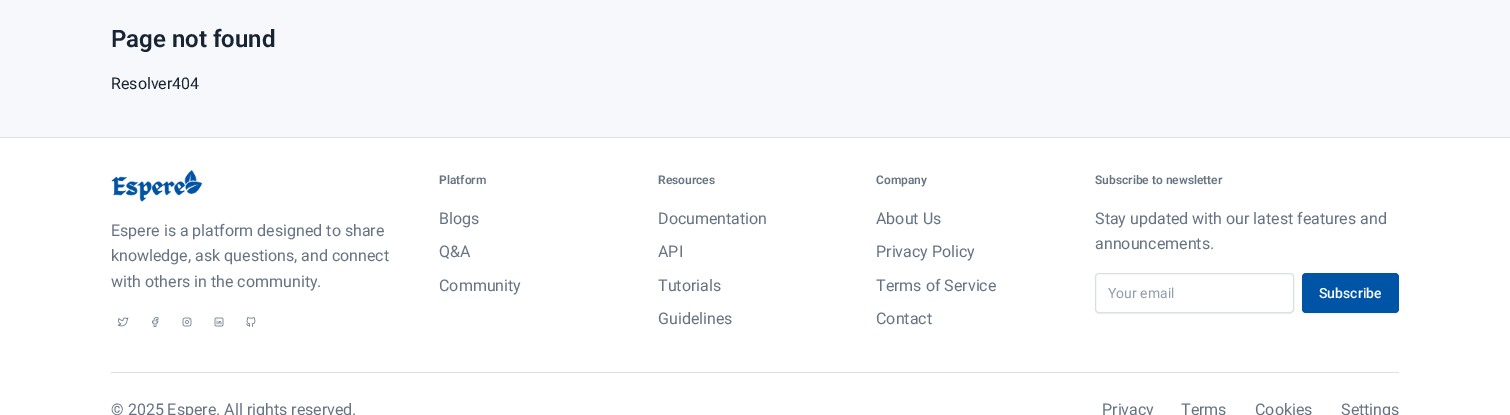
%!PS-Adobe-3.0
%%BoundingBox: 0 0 1510 415
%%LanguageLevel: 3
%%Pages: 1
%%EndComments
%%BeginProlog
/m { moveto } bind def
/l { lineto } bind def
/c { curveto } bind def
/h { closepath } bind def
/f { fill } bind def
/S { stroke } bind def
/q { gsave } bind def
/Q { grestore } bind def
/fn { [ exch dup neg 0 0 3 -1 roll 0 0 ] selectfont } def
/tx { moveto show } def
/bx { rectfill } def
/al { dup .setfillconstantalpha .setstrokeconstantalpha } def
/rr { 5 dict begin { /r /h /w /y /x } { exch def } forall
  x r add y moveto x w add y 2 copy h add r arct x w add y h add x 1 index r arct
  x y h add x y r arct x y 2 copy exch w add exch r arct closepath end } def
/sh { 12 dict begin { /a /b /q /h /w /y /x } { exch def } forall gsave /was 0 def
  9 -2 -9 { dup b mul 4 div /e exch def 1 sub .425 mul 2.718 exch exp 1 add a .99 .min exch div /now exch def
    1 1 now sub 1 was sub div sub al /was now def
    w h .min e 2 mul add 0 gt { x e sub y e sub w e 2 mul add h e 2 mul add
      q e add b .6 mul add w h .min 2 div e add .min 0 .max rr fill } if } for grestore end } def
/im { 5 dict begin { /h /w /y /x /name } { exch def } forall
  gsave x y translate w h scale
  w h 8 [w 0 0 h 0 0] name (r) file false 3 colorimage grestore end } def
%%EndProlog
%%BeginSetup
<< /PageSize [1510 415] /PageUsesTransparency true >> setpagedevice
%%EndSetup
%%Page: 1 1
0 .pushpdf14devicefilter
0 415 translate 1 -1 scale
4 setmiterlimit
0.965 0.973 0.984 setrgbcolor
0 0 1510 415 bx
/Roboto-SemiBold 24 fn
0.094 0.141 0.2 setrgbcolor
(Page not found) 111 47 tx
/Roboto-Regular 16 fn
(Resolver404) 111 89 tx
1 setgray
0 138 1510 277 bx
0.863 0.878 0.898 setrgbcolor
0 137 1510 1 bx
(image0.raw) 111 170 92 32 im
0.4 0.451 0.51 setrgbcolor
(Espere is a platform designed to share) 111 236 tx
(knowledge, ask questions, and connect) 111 261 tx
(with others in the community.) 111 287 tx
(image1.raw) 117 317 12 10 im
(image2.raw) 152 317 7 10 im
(image3.raw) 182 317 10 10 im
(image4.raw) 214 317 10 10 im
(image5.raw) 246 317 10 10 im
/Roboto-SemiBold 12 fn
(Platform) 439 184 tx
/Roboto-Regular 16 fn
(Blogs) 439 224 tx
(Q&A) 439 257 tx
(Community) 439 291 tx
/Roboto-SemiBold 12 fn
(Resources) 658 184 tx
/Roboto-Regular 16 fn
(Documentation) 658 224 tx
(API) 658 257 tx
(Tutorials) 658 291 tx
(Guidelines) 658 324 tx
/Roboto-SemiBold 12 fn
(Company) 876 184 tx
/Roboto-Regular 16 fn
(About Us) 876 224 tx
(Privacy Policy) 876 257 tx
(Terms of Service) 876 291 tx
(Contact) 876 324 tx
/Roboto-SemiBold 12 fn
(Subscribe to newsletter) 1095 184 tx
/Roboto-Regular 16 fn
(Stay updated with our latest features and) 1095 224 tx
(announcements.) 1095 249 tx
q
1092 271 m 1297 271 l 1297 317 l 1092 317 l h 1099 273 m 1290 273 l 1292 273 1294 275 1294 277 c 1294 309 l 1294 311 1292 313 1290 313 c 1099 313 l 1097 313 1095 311 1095 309 c 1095 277 l 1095 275 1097 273 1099 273 c h eoclip newpath
0.094 0.141 0.2 setrgbcolor
1095 274 199 40 4 0.5 0.06 sh
Q
0.855 0.875 0.898 setrgbcolor
1095.5 273.5 198 39 3.5 rr S
/Roboto-Regular 14 fn
0.573 0.616 0.671 setrgbcolor
(Your email) 1108 298 tx
0.094 0.141 0.2 setrgbcolor
1302 274 97 40 4 0.5 0.06 sh
0 0.329 0.651 setrgbcolor
1302 273 97 40 4 rr f
/Roboto-Medium 14 fn
0.988 0.992 0.996 setrgbcolor
(Subscribe) 1319 298 tx
0.863 0.878 0.898 setrgbcolor
111 372 1288 1 bx
/Roboto-Regular 16 fn
0.4 0.451 0.51 setrgbcolor
(© 2025 Espere. All rights reserved.) 111 415 tx
(Privacy) 1102 415 tx
(Terms) 1181 415 tx
(Cookies) 1255 415 tx
(Settings) 1341 415 tx
.poppdf14devicefilter showpage
%%EOF
